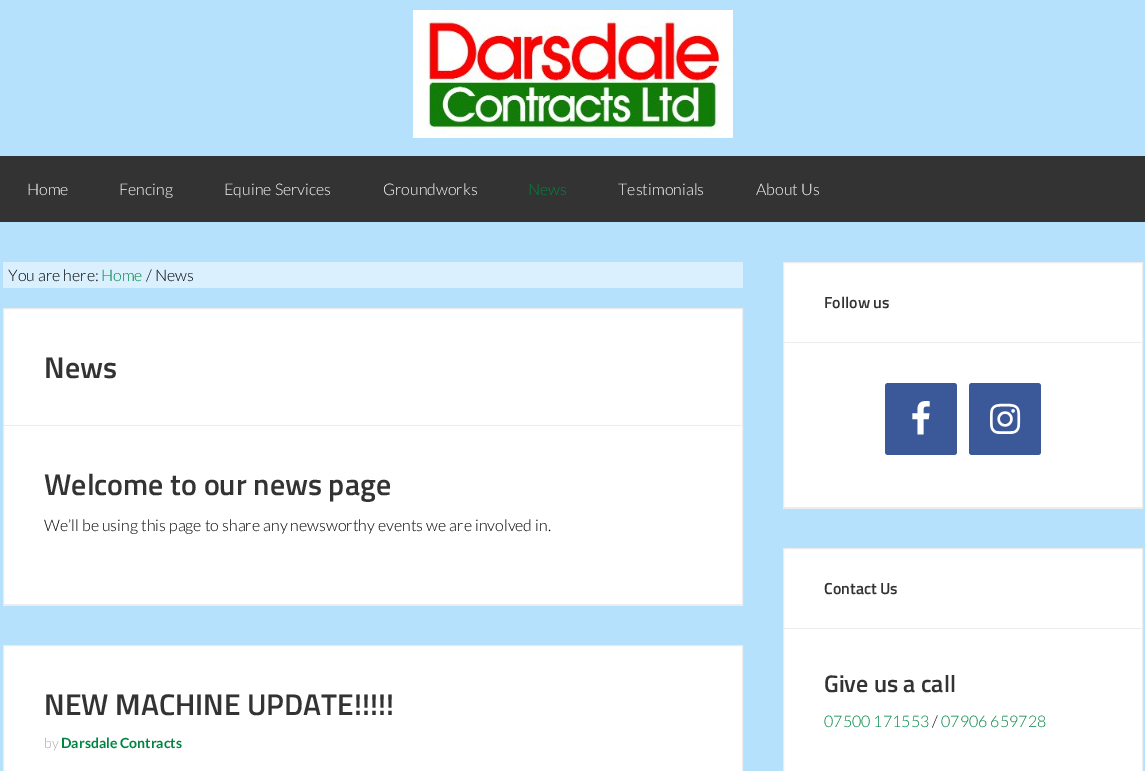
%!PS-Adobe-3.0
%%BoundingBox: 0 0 1145 771
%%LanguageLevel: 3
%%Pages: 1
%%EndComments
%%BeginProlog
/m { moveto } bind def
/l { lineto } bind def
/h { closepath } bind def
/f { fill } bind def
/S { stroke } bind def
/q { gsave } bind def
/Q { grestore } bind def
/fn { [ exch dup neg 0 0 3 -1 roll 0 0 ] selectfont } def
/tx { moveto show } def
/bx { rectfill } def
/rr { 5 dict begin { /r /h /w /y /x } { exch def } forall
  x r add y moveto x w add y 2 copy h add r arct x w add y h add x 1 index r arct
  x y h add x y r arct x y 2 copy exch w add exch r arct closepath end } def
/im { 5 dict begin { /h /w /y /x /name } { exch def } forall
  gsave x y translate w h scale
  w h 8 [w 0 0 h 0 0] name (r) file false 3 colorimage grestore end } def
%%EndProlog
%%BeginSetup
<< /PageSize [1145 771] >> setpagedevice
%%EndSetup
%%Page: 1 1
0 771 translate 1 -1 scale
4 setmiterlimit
0.714 0.882 0.988 setrgbcolor
0 0 1145 771 bx
(image0.raw) 413 10 320 128 im
0.2 setgray
0 156 1145 66 bx
/Lato-Light 16 fn
1 setgray
(Home) 27 195 tx
(Fencing) 119 195 tx
(Equine Services) 224 195 tx
(Groundworks) 383 195 tx
0 0.522 0.255 setrgbcolor
(News) 528 195 tx
1 setgray
(Testimonials) 618 195 tx
(About Us) 756 195 tx
0.859 0.941 0.996 setrgbcolor
3 262 740 26 bx
0 setgray
(You are here:) 8 281 tx
0 0.522 0.255 setrgbcolor
(Home) 101 281 tx
0 setgray
(/ News) 146 281 tx
0.925 setgray
3 605 740 1 bx
1 setgray
3.5 308.5 m 742.5 308.5 l 742.5 604.5 l 3.5 604.5 l h q f Q
0.925 setgray
S
4 425 738 1 bx
/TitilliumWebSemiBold-SemiBold 30 fn
0.2 setgray
(News) 44 378 tx
(Welcome to our news page) 44 495 tx
/Lato-Light 16 fn
0 setgray
(We’ll be using this page to share any newsworthy events we are involved in.) 44 531 tx
1 setgray
3.5 645.5 m 742.5 645.5 l 742.5 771.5 l 3.5 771.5 l h q f Q
0.925 setgray
S
/TitilliumWebSemiBold-SemiBold 30 fn
0.2 setgray
(NEW MACHINE UPDATE!!!!!) 44 715 tx
/Lato-Light 14 fn
0.667 setgray
(by) 44 748 tx
/Lato-Bold 14 fn
0 0.522 0.255 setrgbcolor
(Darsdale Contracts) 61 748 tx
0.925 setgray
783 508 360 1 bx
1 setgray
783.5 262.5 m 1142.5 262.5 l 1142.5 507.5 l 783.5 507.5 l h q f Q
0.925 setgray
S
784 342 358 1 bx
/TitilliumWebSemiBold-SemiBold 16 fn
0.2 setgray
(Follow us) 824 308 tx
0.231 0.349 0.596 setrgbcolor
885 383 72 72 3 rr f
(image1.raw) 912 401 18 34 im
969 383 72 72 3 rr f
(image2.raw) 990 403 31 31 im
1 setgray
783.5 548.5 m 1142.5 548.5 l 1142.5 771.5 l 783.5 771.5 l h q f Q
0.925 setgray
S
784 628 358 1 bx
0.2 setgray
(Contact Us) 824 594 tx
/TitilliumWebSemiBold-SemiBold 24 fn
(Give us a call) 824 692 tx
/Lato-Light 16 fn
0 0.522 0.255 setrgbcolor
(07500 171553) 824 727 tx
0 setgray
(/) 932 727 tx
0 0.522 0.255 setrgbcolor
(07906 659728) 941 727 tx
showpage
%%EOF
